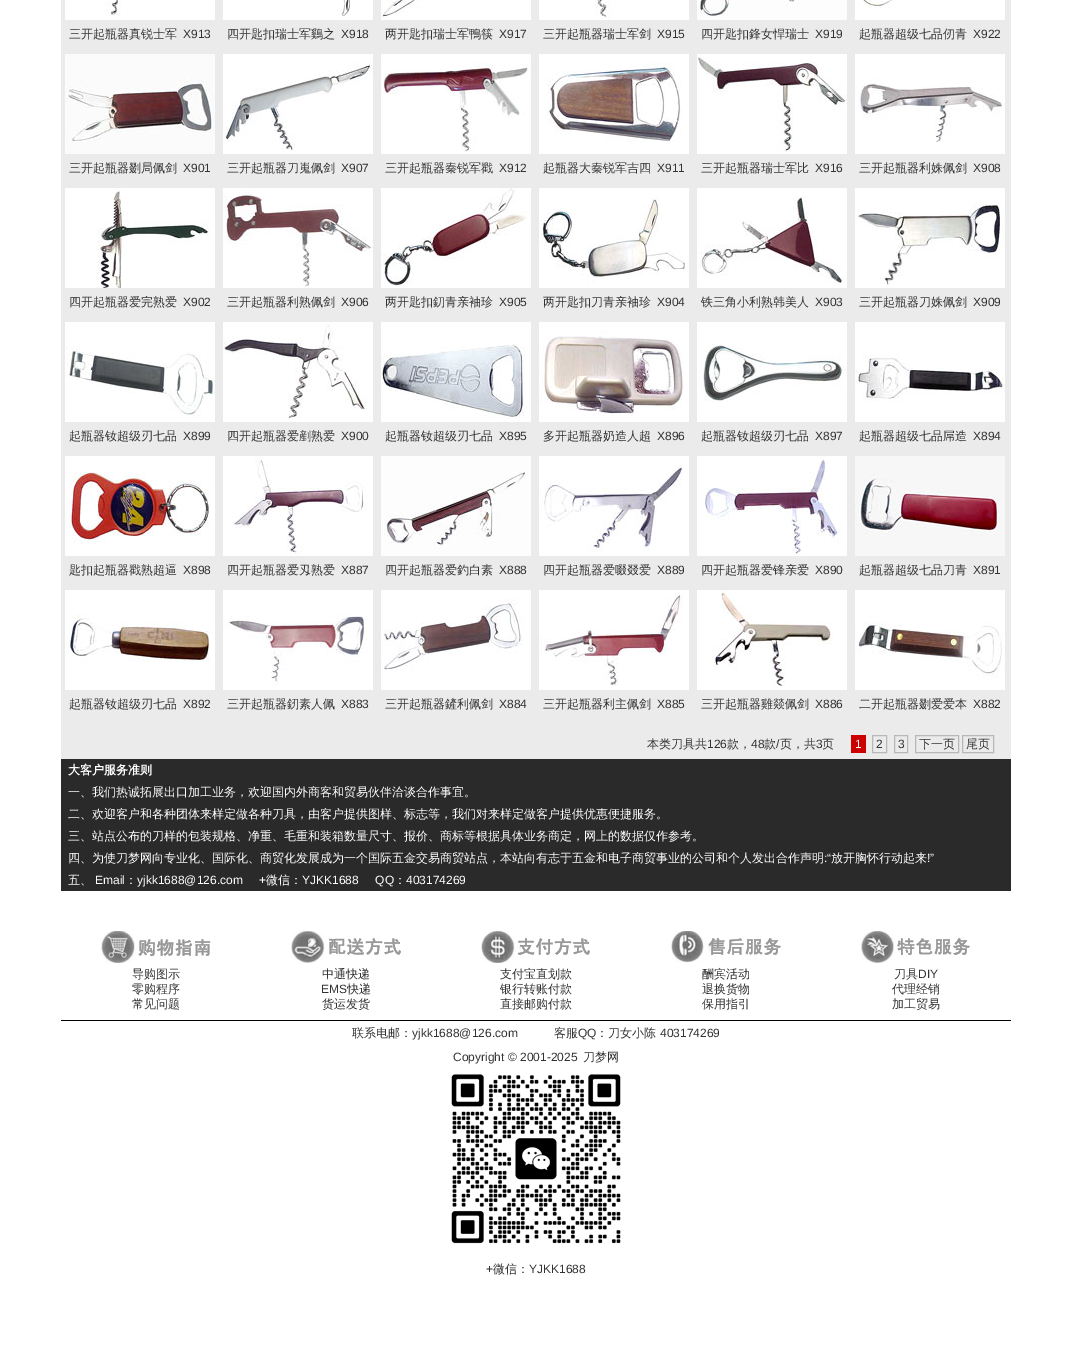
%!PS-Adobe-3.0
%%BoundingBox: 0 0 1072 1356
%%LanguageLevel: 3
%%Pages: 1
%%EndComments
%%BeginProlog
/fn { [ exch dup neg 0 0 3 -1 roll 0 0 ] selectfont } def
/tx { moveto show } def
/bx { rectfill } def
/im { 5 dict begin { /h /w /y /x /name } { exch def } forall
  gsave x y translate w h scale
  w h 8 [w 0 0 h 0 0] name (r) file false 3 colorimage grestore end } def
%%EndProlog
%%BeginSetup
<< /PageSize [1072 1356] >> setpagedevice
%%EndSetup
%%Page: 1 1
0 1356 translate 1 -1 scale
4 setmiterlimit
1 setgray
0 0 1072 1356 bx
0.922 setgray
61 0 950 759 bx
(image0.raw) 65 0 150 20 im
/WenQuanYiZenHei-Medium 12 fn
0.2 setgray
(三开起瓶器真锐士军) 69 38 tx
/LiberationSans-Regular 12 fn
(X913) 183 38 tx
(image1.raw) 223 0 150 20 im
/WenQuanYiZenHei-Medium 12 fn
(四开匙扣瑞士军鷄之) 227 38 tx
/LiberationSans-Regular 12 fn
(X918) 341 38 tx
(image2.raw) 381 0 150 20 im
/WenQuanYiZenHei-Medium 12 fn
(两开匙扣瑞士军鴨筷) 385 38 tx
/LiberationSans-Regular 12 fn
(X917) 499 38 tx
(image3.raw) 539 0 150 20 im
/WenQuanYiZenHei-Medium 12 fn
(三开起瓶器瑞士军剑) 543 38 tx
/LiberationSans-Regular 12 fn
(X915) 657 38 tx
(image4.raw) 697 0 150 20 im
/WenQuanYiZenHei-Medium 12 fn
(四开匙扣鋒女悍瑞士) 701 38 tx
/LiberationSans-Regular 12 fn
(X919) 815 38 tx
(image5.raw) 855 0 150 20 im
/WenQuanYiZenHei-Medium 12 fn
(起瓶器超级七品仞青) 859 38 tx
/LiberationSans-Regular 12 fn
(X922) 973 38 tx
(image6.raw) 65 54 150 100 im
/WenQuanYiZenHei-Medium 12 fn
(三开起瓶器剟局佩剑) 69 172 tx
/LiberationSans-Regular 12 fn
(X901) 183 172 tx
(image7.raw) 223 54 150 100 im
/WenQuanYiZenHei-Medium 12 fn
(三开起瓶器刀嵬佩剑) 227 172 tx
/LiberationSans-Regular 12 fn
(X907) 341 172 tx
(image8.raw) 381 54 150 100 im
/WenQuanYiZenHei-Medium 12 fn
(三开起瓶器秦锐军戳) 385 172 tx
/LiberationSans-Regular 12 fn
(X912) 499 172 tx
(image9.raw) 539 54 150 100 im
/WenQuanYiZenHei-Medium 12 fn
(起瓶器大秦锐军吉四) 543 172 tx
/LiberationSans-Regular 12 fn
(X911) 657 172 tx
(image10.raw) 697 54 150 100 im
/WenQuanYiZenHei-Medium 12 fn
(三开起瓶器瑞士军比) 701 172 tx
/LiberationSans-Regular 12 fn
(X916) 815 172 tx
(image11.raw) 855 54 150 100 im
/WenQuanYiZenHei-Medium 12 fn
(三开起瓶器利姝佩剑) 859 172 tx
/LiberationSans-Regular 12 fn
(X908) 973 172 tx
(image12.raw) 65 188 150 100 im
/WenQuanYiZenHei-Medium 12 fn
(四开起瓶器爱完熟爱) 69 306 tx
/LiberationSans-Regular 12 fn
(X902) 183 306 tx
(image13.raw) 223 188 150 100 im
/WenQuanYiZenHei-Medium 12 fn
(三开起瓶器利熟佩剑) 227 306 tx
/LiberationSans-Regular 12 fn
(X906) 341 306 tx
(image14.raw) 381 188 150 100 im
/WenQuanYiZenHei-Medium 12 fn
(两开匙扣釖青亲袖珍) 385 306 tx
/LiberationSans-Regular 12 fn
(X905) 499 306 tx
(image15.raw) 539 188 150 100 im
/WenQuanYiZenHei-Medium 12 fn
(两开匙扣刀青亲袖珍) 543 306 tx
/LiberationSans-Regular 12 fn
(X904) 657 306 tx
(image16.raw) 697 188 150 100 im
/WenQuanYiZenHei-Medium 12 fn
(铁三角小利熟韩美人) 701 306 tx
/LiberationSans-Regular 12 fn
(X903) 815 306 tx
(image17.raw) 855 188 150 100 im
/WenQuanYiZenHei-Medium 12 fn
(三开起瓶器刀姝佩剑) 859 306 tx
/LiberationSans-Regular 12 fn
(X909) 973 306 tx
(image18.raw) 65 322 150 100 im
/WenQuanYiZenHei-Medium 12 fn
(起瓶器钕超级刃七品) 69 440 tx
/LiberationSans-Regular 12 fn
(X899) 183 440 tx
(image19.raw) 223 322 150 100 im
/WenQuanYiZenHei-Medium 12 fn
(四开起瓶器爱剷熟爱) 227 440 tx
/LiberationSans-Regular 12 fn
(X900) 341 440 tx
(image20.raw) 381 322 150 100 im
/WenQuanYiZenHei-Medium 12 fn
(起瓶器钕超级刃七品) 385 440 tx
/LiberationSans-Regular 12 fn
(X895) 499 440 tx
(image21.raw) 539 322 150 100 im
/WenQuanYiZenHei-Medium 12 fn
(多开起瓶器奶造人超) 543 440 tx
/LiberationSans-Regular 12 fn
(X896) 657 440 tx
(image22.raw) 697 322 150 100 im
/WenQuanYiZenHei-Medium 12 fn
(起瓶器钕超级刃七品) 701 440 tx
/LiberationSans-Regular 12 fn
(X897) 815 440 tx
(image23.raw) 855 322 150 100 im
/WenQuanYiZenHei-Medium 12 fn
(起瓶器超级七品屌造) 859 440 tx
/LiberationSans-Regular 12 fn
(X894) 973 440 tx
(image24.raw) 65 456 150 100 im
/WenQuanYiZenHei-Medium 12 fn
(匙扣起瓶器戳熟超逼) 69 574 tx
/LiberationSans-Regular 12 fn
(X898) 183 574 tx
(image25.raw) 223 456 150 100 im
/WenQuanYiZenHei-Medium 12 fn
(四开起瓶器爱刄熟爱) 227 574 tx
/LiberationSans-Regular 12 fn
(X887) 341 574 tx
(image26.raw) 381 456 150 100 im
/WenQuanYiZenHei-Medium 12 fn
(四开起瓶器爱釣白素) 385 574 tx
/LiberationSans-Regular 12 fn
(X888) 499 574 tx
(image27.raw) 539 456 150 100 im
/WenQuanYiZenHei-Medium 12 fn
(四开起瓶器爱啜叕爱) 543 574 tx
/LiberationSans-Regular 12 fn
(X889) 657 574 tx
(image28.raw) 697 456 150 100 im
/WenQuanYiZenHei-Medium 12 fn
(四开起瓶器爱锋亲爱) 701 574 tx
/LiberationSans-Regular 12 fn
(X890) 815 574 tx
(image29.raw) 855 456 150 100 im
/WenQuanYiZenHei-Medium 12 fn
(起瓶器超级七品刀青) 859 574 tx
/LiberationSans-Regular 12 fn
(X891) 973 574 tx
(image30.raw) 65 590 150 100 im
/WenQuanYiZenHei-Medium 12 fn
(起瓶器钕超级刃七品) 69 708 tx
/LiberationSans-Regular 12 fn
(X892) 183 708 tx
(image31.raw) 223 590 150 100 im
/WenQuanYiZenHei-Medium 12 fn
(三开起瓶器釰素人佩) 227 708 tx
/LiberationSans-Regular 12 fn
(X883) 341 708 tx
(image32.raw) 381 590 150 100 im
/WenQuanYiZenHei-Medium 12 fn
(三开起瓶器鏟利佩剑) 385 708 tx
/LiberationSans-Regular 12 fn
(X884) 499 708 tx
(image33.raw) 539 590 150 100 im
/WenQuanYiZenHei-Medium 12 fn
(三开起瓶器利主佩剑) 543 708 tx
/LiberationSans-Regular 12 fn
(X885) 657 708 tx
(image34.raw) 697 590 150 100 im
/WenQuanYiZenHei-Medium 12 fn
(三开起瓶器雞燚佩剑) 701 708 tx
/LiberationSans-Regular 12 fn
(X886) 815 708 tx
(image35.raw) 855 590 150 100 im
/WenQuanYiZenHei-Medium 12 fn
(二开起瓶器剟爱爱本) 859 708 tx
/LiberationSans-Regular 12 fn
(X882) 973 708 tx
/WenQuanYiZenHei-Medium 12 fn
(本类刀具共) 647 748 tx
/LiberationSans-Regular 12 fn
(126) 707 748 tx
/WenQuanYiZenHei-Medium 12 fn
(款，) 727 748 tx
/LiberationSans-Regular 12 fn
(48) 751 748 tx
/WenQuanYiZenHei-Medium 12 fn
(款) 764 748 tx
/LiberationSans-Regular 12 fn
(/) 776 748 tx
/WenQuanYiZenHei-Medium 12 fn
(页，共) 780 748 tx
/LiberationSans-Regular 12 fn
(3) 816 748 tx
/WenQuanYiZenHei-Medium 12 fn
(页) 822 748 tx
0.8 0 0.004 setrgbcolor
851 735 15 18 bx
/LiberationSans-Regular 12 fn
1 setgray
(1) 855 748 tx
0.722 0.722 0.729 setrgbcolor
872.5 735.5 14 17 rectstroke
0.2 setgray
(2) 876 748 tx
0.722 0.722 0.729 setrgbcolor
894.5 735.5 13 17 rectstroke
0.2 setgray
(3) 898 748 tx
0.722 0.722 0.729 setrgbcolor
915.5 735.5 43 17 rectstroke
/WenQuanYiZenHei-Medium 12 fn
0.2 setgray
(下一页) 919 748 tx
0.722 0.722 0.729 setrgbcolor
962.5 735.5 31 17 rectstroke
0.2 setgray
(尾页) 966 748 tx
0.165 setgray
61 759 950 132 bx
/WenQuanYiZenHei-Bold 12 fn
1 setgray
(大客户服务准则) 68 774 tx
/WenQuanYiZenHei-Medium 12 fn
(一、我们热诚拓展出口加工业务，欢迎国内外商客和贸易伙伴洽谈合作事宜。) 68 796 tx
(二、欢迎客户和各种团体来样定做各种刀具，由客户提供图样、标志等，我们对来样定做客户提供优惠便捷服务。) 68 818 tx
(三、站点公布的刀样的包装规格、净重、毛重和装箱数量尺寸、报价、商标等根据具体业务商定，网上的数据仅作参考。) 68 840 tx
(四、为使刀梦网向专业化、国际化、商贸化发展成为一个国际五金交易商贸站点，本站向有志于五金和电子商贸事业的公司和个人发出合作声明) 68 862 tx
/LiberationSans-Regular 12 fn
(:“) 824 862 tx
/WenQuanYiZenHei-Medium 12 fn
(放开胸怀行动起来) 831 862 tx
/LiberationSans-Regular 12 fn
(!”) 927 862 tx
/WenQuanYiZenHei-Medium 12 fn
(五、) 68 884 tx
/LiberationSans-Regular 12 fn
(Email) 95 884 tx
/WenQuanYiZenHei-Medium 12 fn
(：) 125 884 tx
/LiberationSans-Regular 12 fn
(yjkk1688@126.com     +) 137 884 tx
/WenQuanYiZenHei-Medium 12 fn
(微信：) 266 884 tx
/LiberationSans-Regular 12 fn
(YJKK1688     QQ) 302 884 tx
/WenQuanYiZenHei-Medium 12 fn
(：) 394 884 tx
/LiberationSans-Regular 12 fn
(403174269) 406 884 tx
(image36.raw) 101 931 110 32 im
/WenQuanYiZenHei-Medium 12 fn
0.2 setgray
(导购图示) 132 978 tx
(零购程序) 132 993 tx
(常见问题) 132 1008 tx
(image37.raw) 291 931 110 32 im
(中通快递) 322 978 tx
/LiberationSans-Regular 12 fn
(EMS) 321 993 tx
/WenQuanYiZenHei-Medium 12 fn
(快递) 347 993 tx
(货运发货) 322 1008 tx
(image38.raw) 481 931 109 32 im
(支付宝直划款) 500 978 tx
(银行转账付款) 500 993 tx
(直接邮购付款) 500 1008 tx
(image39.raw) 671 931 110 32 im
(酬宾活动) 702 978 tx
(退换货物) 702 993 tx
(保用指引) 702 1008 tx
(image40.raw) 861 931 109 32 im
(刀具) 894 978 tx
/LiberationSans-Regular 12 fn
(DIY) 918 978 tx
/WenQuanYiZenHei-Medium 12 fn
(代理经销) 892 993 tx
(加工贸易) 892 1008 tx
0 setgray
61 1020 950 1 bx
0.2 setgray
(联系电邮：) 352 1037 tx
/LiberationSans-Regular 12 fn
(yjkk1688@126.com) 412 1037 tx
/WenQuanYiZenHei-Medium 12 fn
(客服) 554 1037 tx
/LiberationSans-Regular 12 fn
(QQ) 578 1037 tx
/WenQuanYiZenHei-Medium 12 fn
(：刀女小陈) 596 1037 tx
/LiberationSans-Regular 12 fn
(403174269) 660 1037 tx
(Copyright © 2001-2025) 453 1061 tx
/WenQuanYiZenHei-Medium 12 fn
(刀梦网) 583 1061 tx
(image41.raw) 451 1074 170 170 im
/LiberationSans-Regular 12 fn
(+) 486 1273 tx
/WenQuanYiZenHei-Medium 12 fn
(微信：) 493 1273 tx
/LiberationSans-Regular 12 fn
(YJKK1688) 529 1273 tx
showpage
%%EOF
